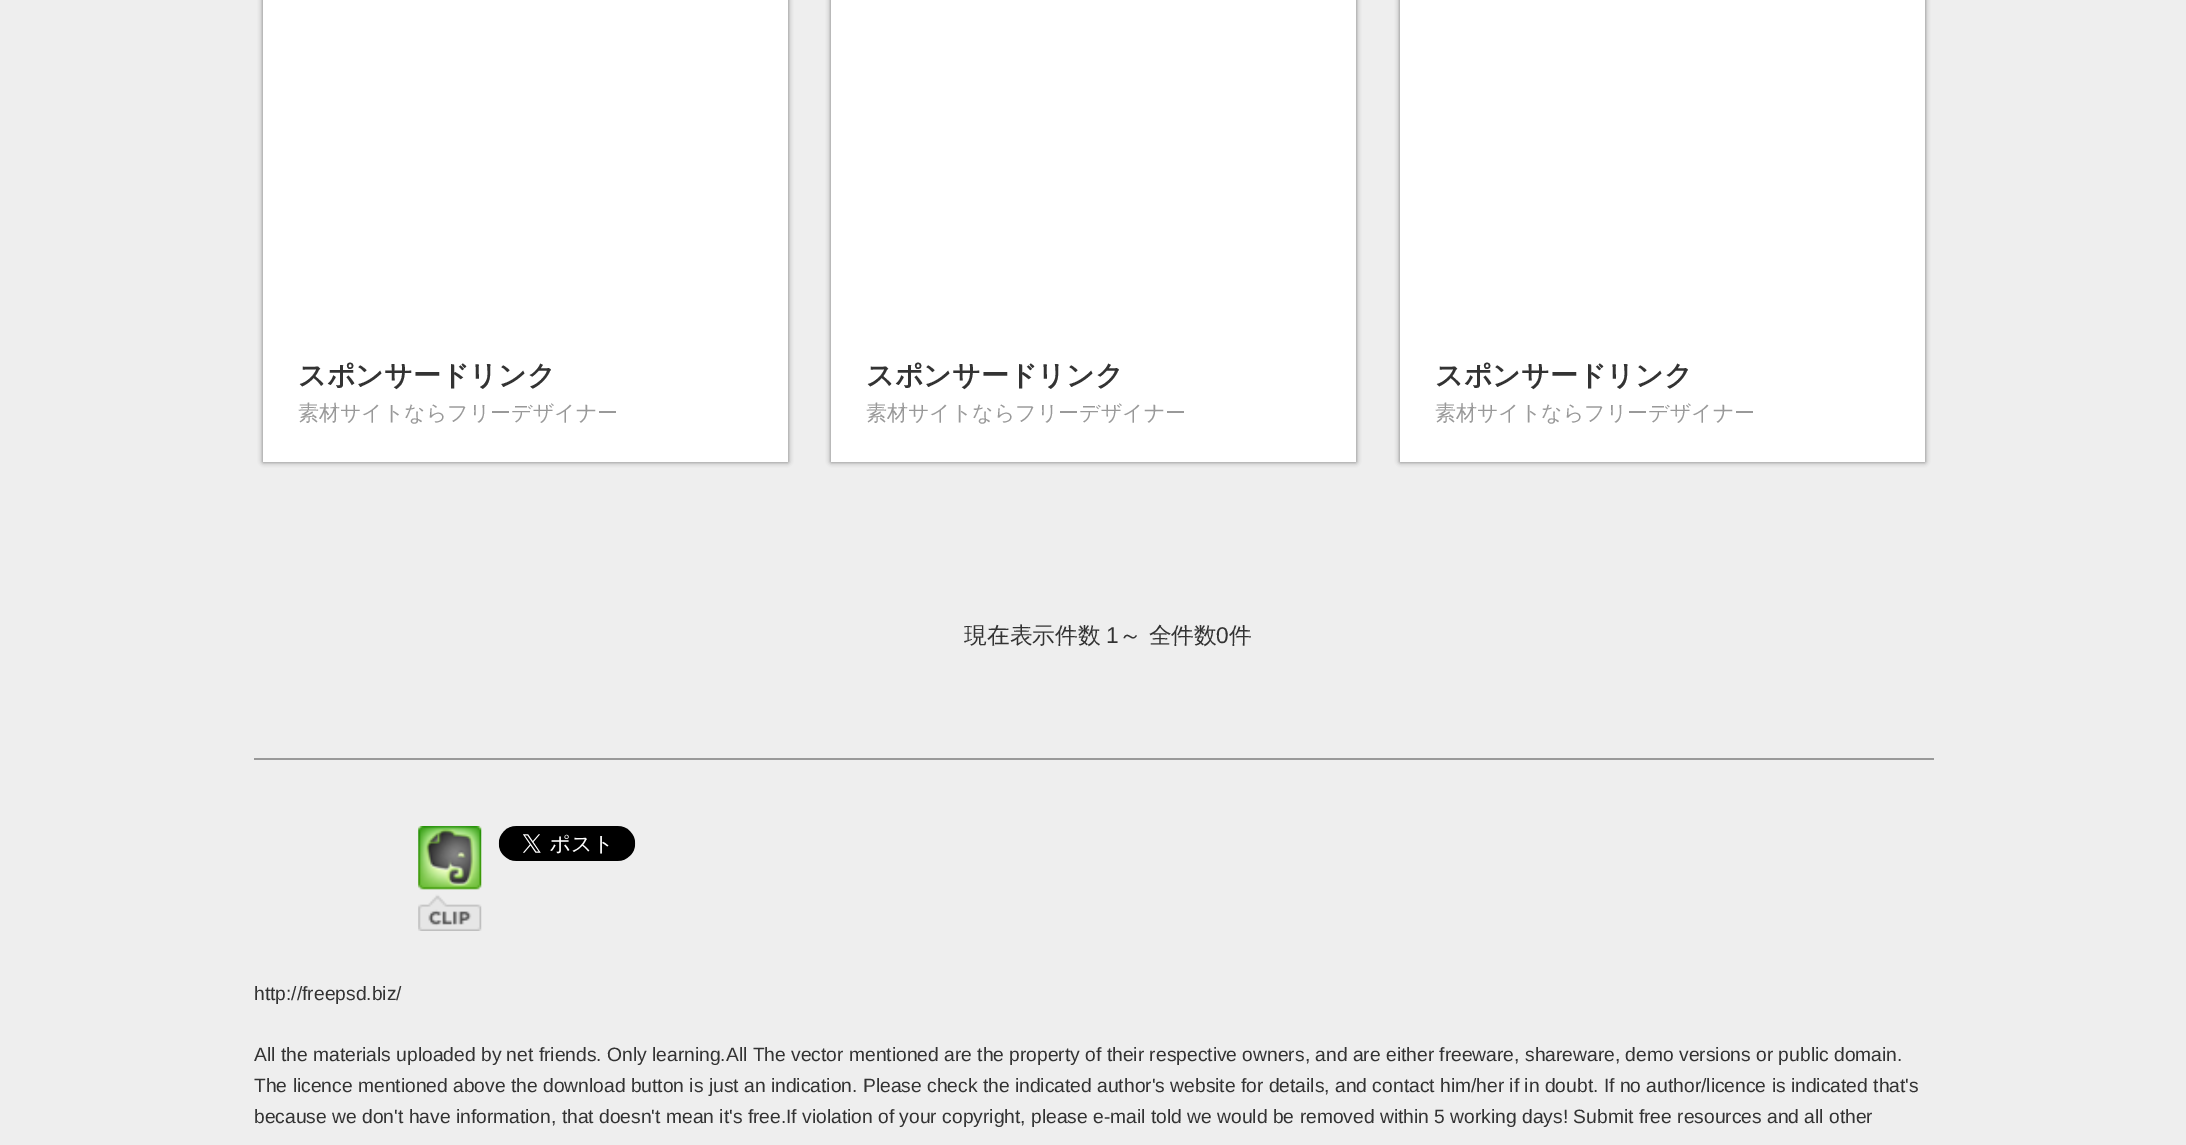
%!PS-Adobe-3.0
%%BoundingBox: 0 0 2186 1145
%%LanguageLevel: 3
%%Pages: 1
%%EndComments
%%BeginProlog
/fn { [ exch dup neg 0 0 3 -1 roll 0 0 ] selectfont } def
/tx { moveto show } def
/bx { rectfill } def
/al { dup .setfillconstantalpha .setstrokeconstantalpha } def
/rr { 5 dict begin { /r /h /w /y /x } { exch def } forall
  x r add y moveto x w add y 2 copy h add r arct x w add y h add x 1 index r arct
  x y h add x y r arct x y 2 copy exch w add exch r arct closepath end } def
/sh { 12 dict begin { /a /b /q /h /w /y /x } { exch def } forall gsave /was 0 def
  9 -2 -9 { dup b mul 4 div /e exch def 1 sub .425 mul 2.718 exch exp 1 add a .99 .min exch div /now exch def
    1 1 now sub 1 was sub div sub al /was now def
    w h .min e 2 mul add 0 gt { x e sub y e sub w e 2 mul add h e 2 mul add
      q e add b .6 mul add w h .min 2 div e add .min 0 .max rr fill } if } for grestore end } def
/im { 5 dict begin { /h /w /y /x /name } { exch def } forall
  gsave x y translate w h scale
  w h 8 [w 0 0 h 0 0] name (r) file false 3 colorimage grestore end } def
%%EndProlog
%%BeginSetup
<< /PageSize [2186 1145] /PageUsesTransparency true >> setpagedevice
%%EndSetup
%%Page: 1 1
0 .pushpdf14devicefilter
0 1145 translate 1 -1 scale
4 setmiterlimit
0.933 setgray
0 0 2186 1145 bx
0 setgray
263 -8 525 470 0 2.5 0.5 sh
1 setgray
263 0 525 462 bx
/WenQuanYiZenHei-Bold 28 fn
0.2 setgray
(スポンサードリンク) 298 385 tx
/WenQuanYiZenHei-Medium 21 fn
0.6 setgray
(素材サイトならフリーデザイナー) 298 420 tx
0 setgray
831 -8 525 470 0 2.5 0.5 sh
1 setgray
831 0 525 462 bx
/WenQuanYiZenHei-Bold 28 fn
0.2 setgray
(スポンサードリンク) 866 385 tx
/WenQuanYiZenHei-Medium 21 fn
0.6 setgray
(素材サイトならフリーデザイナー) 866 420 tx
0 setgray
1400 -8 525 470 0 2.5 0.5 sh
1 setgray
1400 0 525 462 bx
/WenQuanYiZenHei-Bold 28 fn
0.2 setgray
(スポンサードリンク) 1435 385 tx
/WenQuanYiZenHei-Medium 21 fn
0.6 setgray
(素材サイトならフリーデザイナー) 1435 420 tx
/WenQuanYiZenHei-Medium 22.75 fn
0.2 setgray
(現在表示件数) 964 643 tx
/LiberationSans-Regular 22.75 fn
(1) 1106 643 tx
/WenQuanYiZenHei-Medium 22.75 fn
(～ 全件数) 1119 643 tx
/LiberationSans-Regular 22.75 fn
(0) 1216 643 tx
/WenQuanYiZenHei-Medium 22.75 fn
(件) 1229 643 tx
0.6 setgray
254 758 1680 2 bx
(image0.raw) 418 826 64 105 im
(image1.raw) 498 826 138 35 im
/LiberationSans-Regular 19.25 fn
0.2 setgray
(http://freepsd.biz/) 254 1000 tx
(All the materials uploaded by net friends. Only learning.All The vector mentioned are the property of their respective owners, and are either freeware, shareware, demo versions or public domain.) 254 1061 tx
(The licence mentioned above the download button is just an indication. Please check the indicated author's website for details, and contact him/her if in doubt. If no author/licence is indicated that's) 254 1092 tx
(because we don't have information, that doesn't mean it's free.If violation of your copyright, please e-mail told we would be removed within 5 working days! Submit free resources and all other) 254 1123 tx
.poppdf14devicefilter showpage
%%EOF
